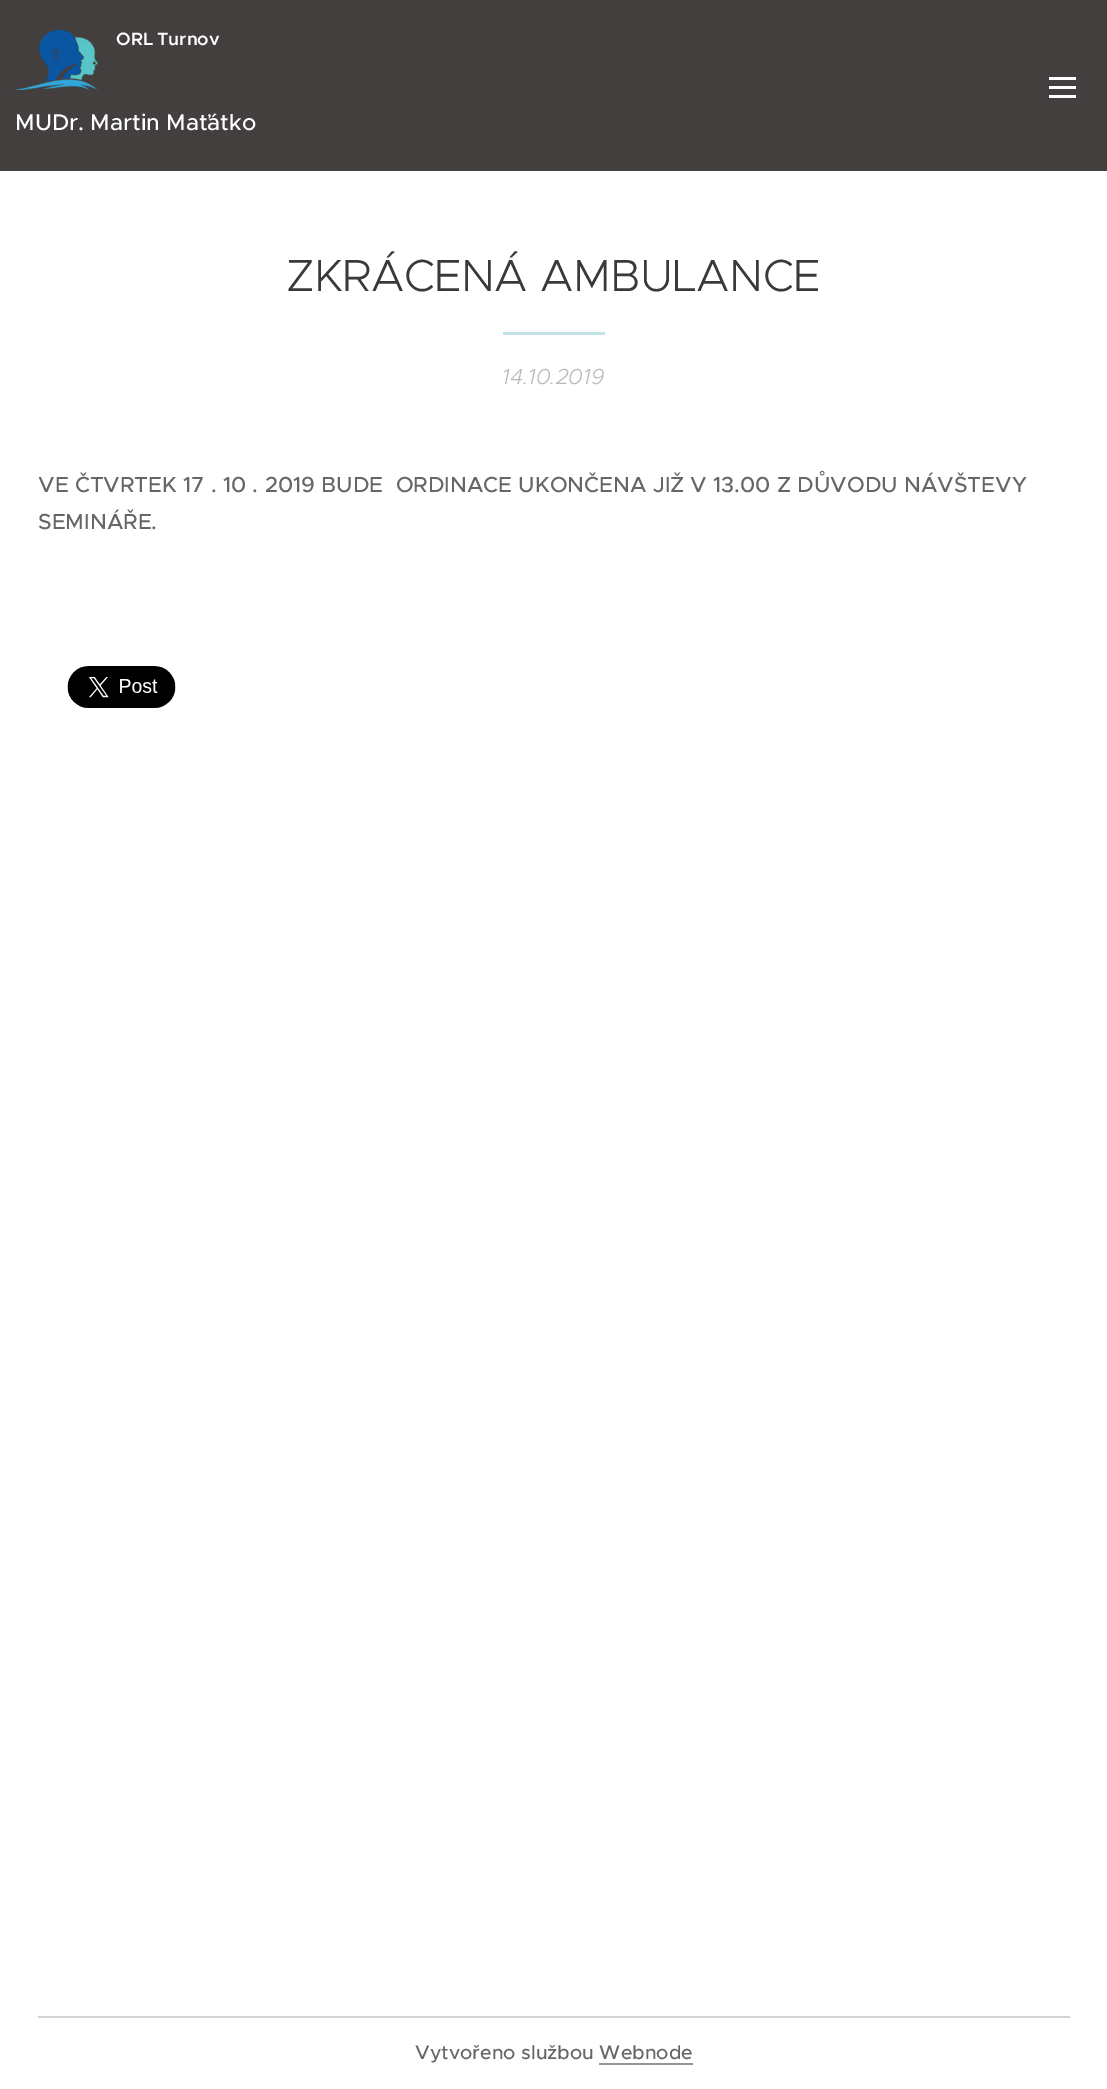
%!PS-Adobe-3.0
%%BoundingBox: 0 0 1107 2089
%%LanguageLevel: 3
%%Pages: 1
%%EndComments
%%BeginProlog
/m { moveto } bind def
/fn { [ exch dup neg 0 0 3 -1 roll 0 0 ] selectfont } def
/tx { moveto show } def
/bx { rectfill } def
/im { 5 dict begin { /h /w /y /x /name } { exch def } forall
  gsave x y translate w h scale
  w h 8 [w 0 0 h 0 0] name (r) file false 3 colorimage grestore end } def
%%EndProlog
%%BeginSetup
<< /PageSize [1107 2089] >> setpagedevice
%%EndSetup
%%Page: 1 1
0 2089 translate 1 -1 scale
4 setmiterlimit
1 setgray
0 0 1107 2089 bx
0.267 0.247 0.247 setrgbcolor
0 0 1107 171 bx
(image0.raw) 15 30 83 60 im
/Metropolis-SemiBold 18 fn
1 setgray
116 45 m -1 0 32 (ORL Turnov) widthshow
/Metropolis-Medium 22.75 fn
(MUDr. Martin Maťátko) 15 130 tx
1049 86 27 3 bx
1049 77 27 3 bx
1049 95 27 3 bx
/Metropolis-Light 45 fn
0.224 setgray
286 291 m -0.5 0 (ZKRÁCENÁ AMBULANCE) ashow
0.753 0.89 0.91 setrgbcolor
503 332 102 3 bx
/Metropolis-LightItalic 21.9 fn
0.729 setgray
(14.10.2019) 502 384 tx
/Metropolis-Medium 21.9 fn
0.4 setgray
(VE ČTVRTEK 17 . 10 . 2019 BUDE  ORDINACE UKONČENA JIŽ V 13.00 Z DŮVODU NÁVŠTEVY) 38 492 tx
(SEMINÁŘE.) 38 529 tx
(image1.raw) 67 666 109 42 im
0.831 setgray
38 2016 1032 2 bx
/Metropolis-Medium 19.5 fn
0.4 setgray
(Vytvořeno službou Webnode) 415 2059 tx
0.58 setgray
599 2063 94 2 bx
showpage
%%EOF
